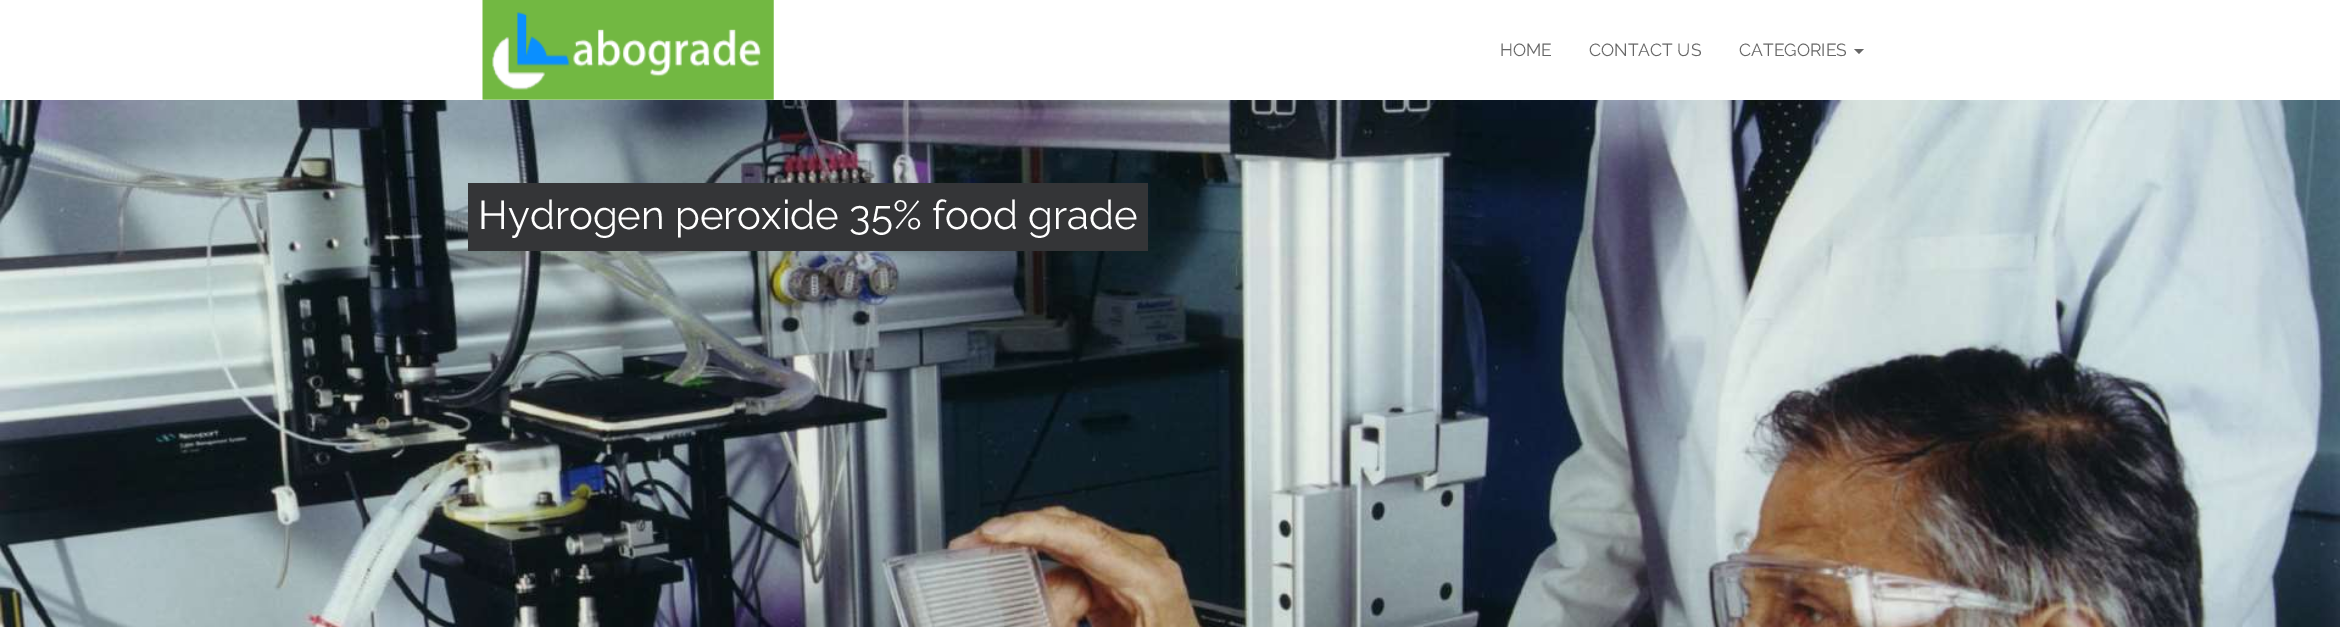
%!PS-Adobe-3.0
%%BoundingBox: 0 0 2340 627
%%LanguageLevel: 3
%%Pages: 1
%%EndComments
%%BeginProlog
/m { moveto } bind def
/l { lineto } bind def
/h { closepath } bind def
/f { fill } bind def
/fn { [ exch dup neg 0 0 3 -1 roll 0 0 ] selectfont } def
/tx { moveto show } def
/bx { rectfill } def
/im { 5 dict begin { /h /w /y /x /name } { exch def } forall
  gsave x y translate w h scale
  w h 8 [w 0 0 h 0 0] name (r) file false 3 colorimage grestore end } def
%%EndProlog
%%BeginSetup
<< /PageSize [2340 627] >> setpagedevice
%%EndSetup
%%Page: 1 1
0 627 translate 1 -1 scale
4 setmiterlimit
1 setgray
0 0 2340 627 bx
(image0.raw) 482 0 292 100 im
/Raleway-Regular 17.5 fn
0.4 setgray
(HOME) 1500 56 tx
(CONTACT US) 1589 56 tx
(CATEGORIES) 1739 56 tx
1854 49 m 1864 49 l 1859 54 l h f
(image1.raw) 0 100 2340 527 im
0.204 0.208 0.216 setrgbcolor
468 183 680 68 bx
/Raleway-Regular 40.25 fn
1 setgray
(Hydrogen peroxide 35% food grade) 478 229 tx
showpage
%%EOF
